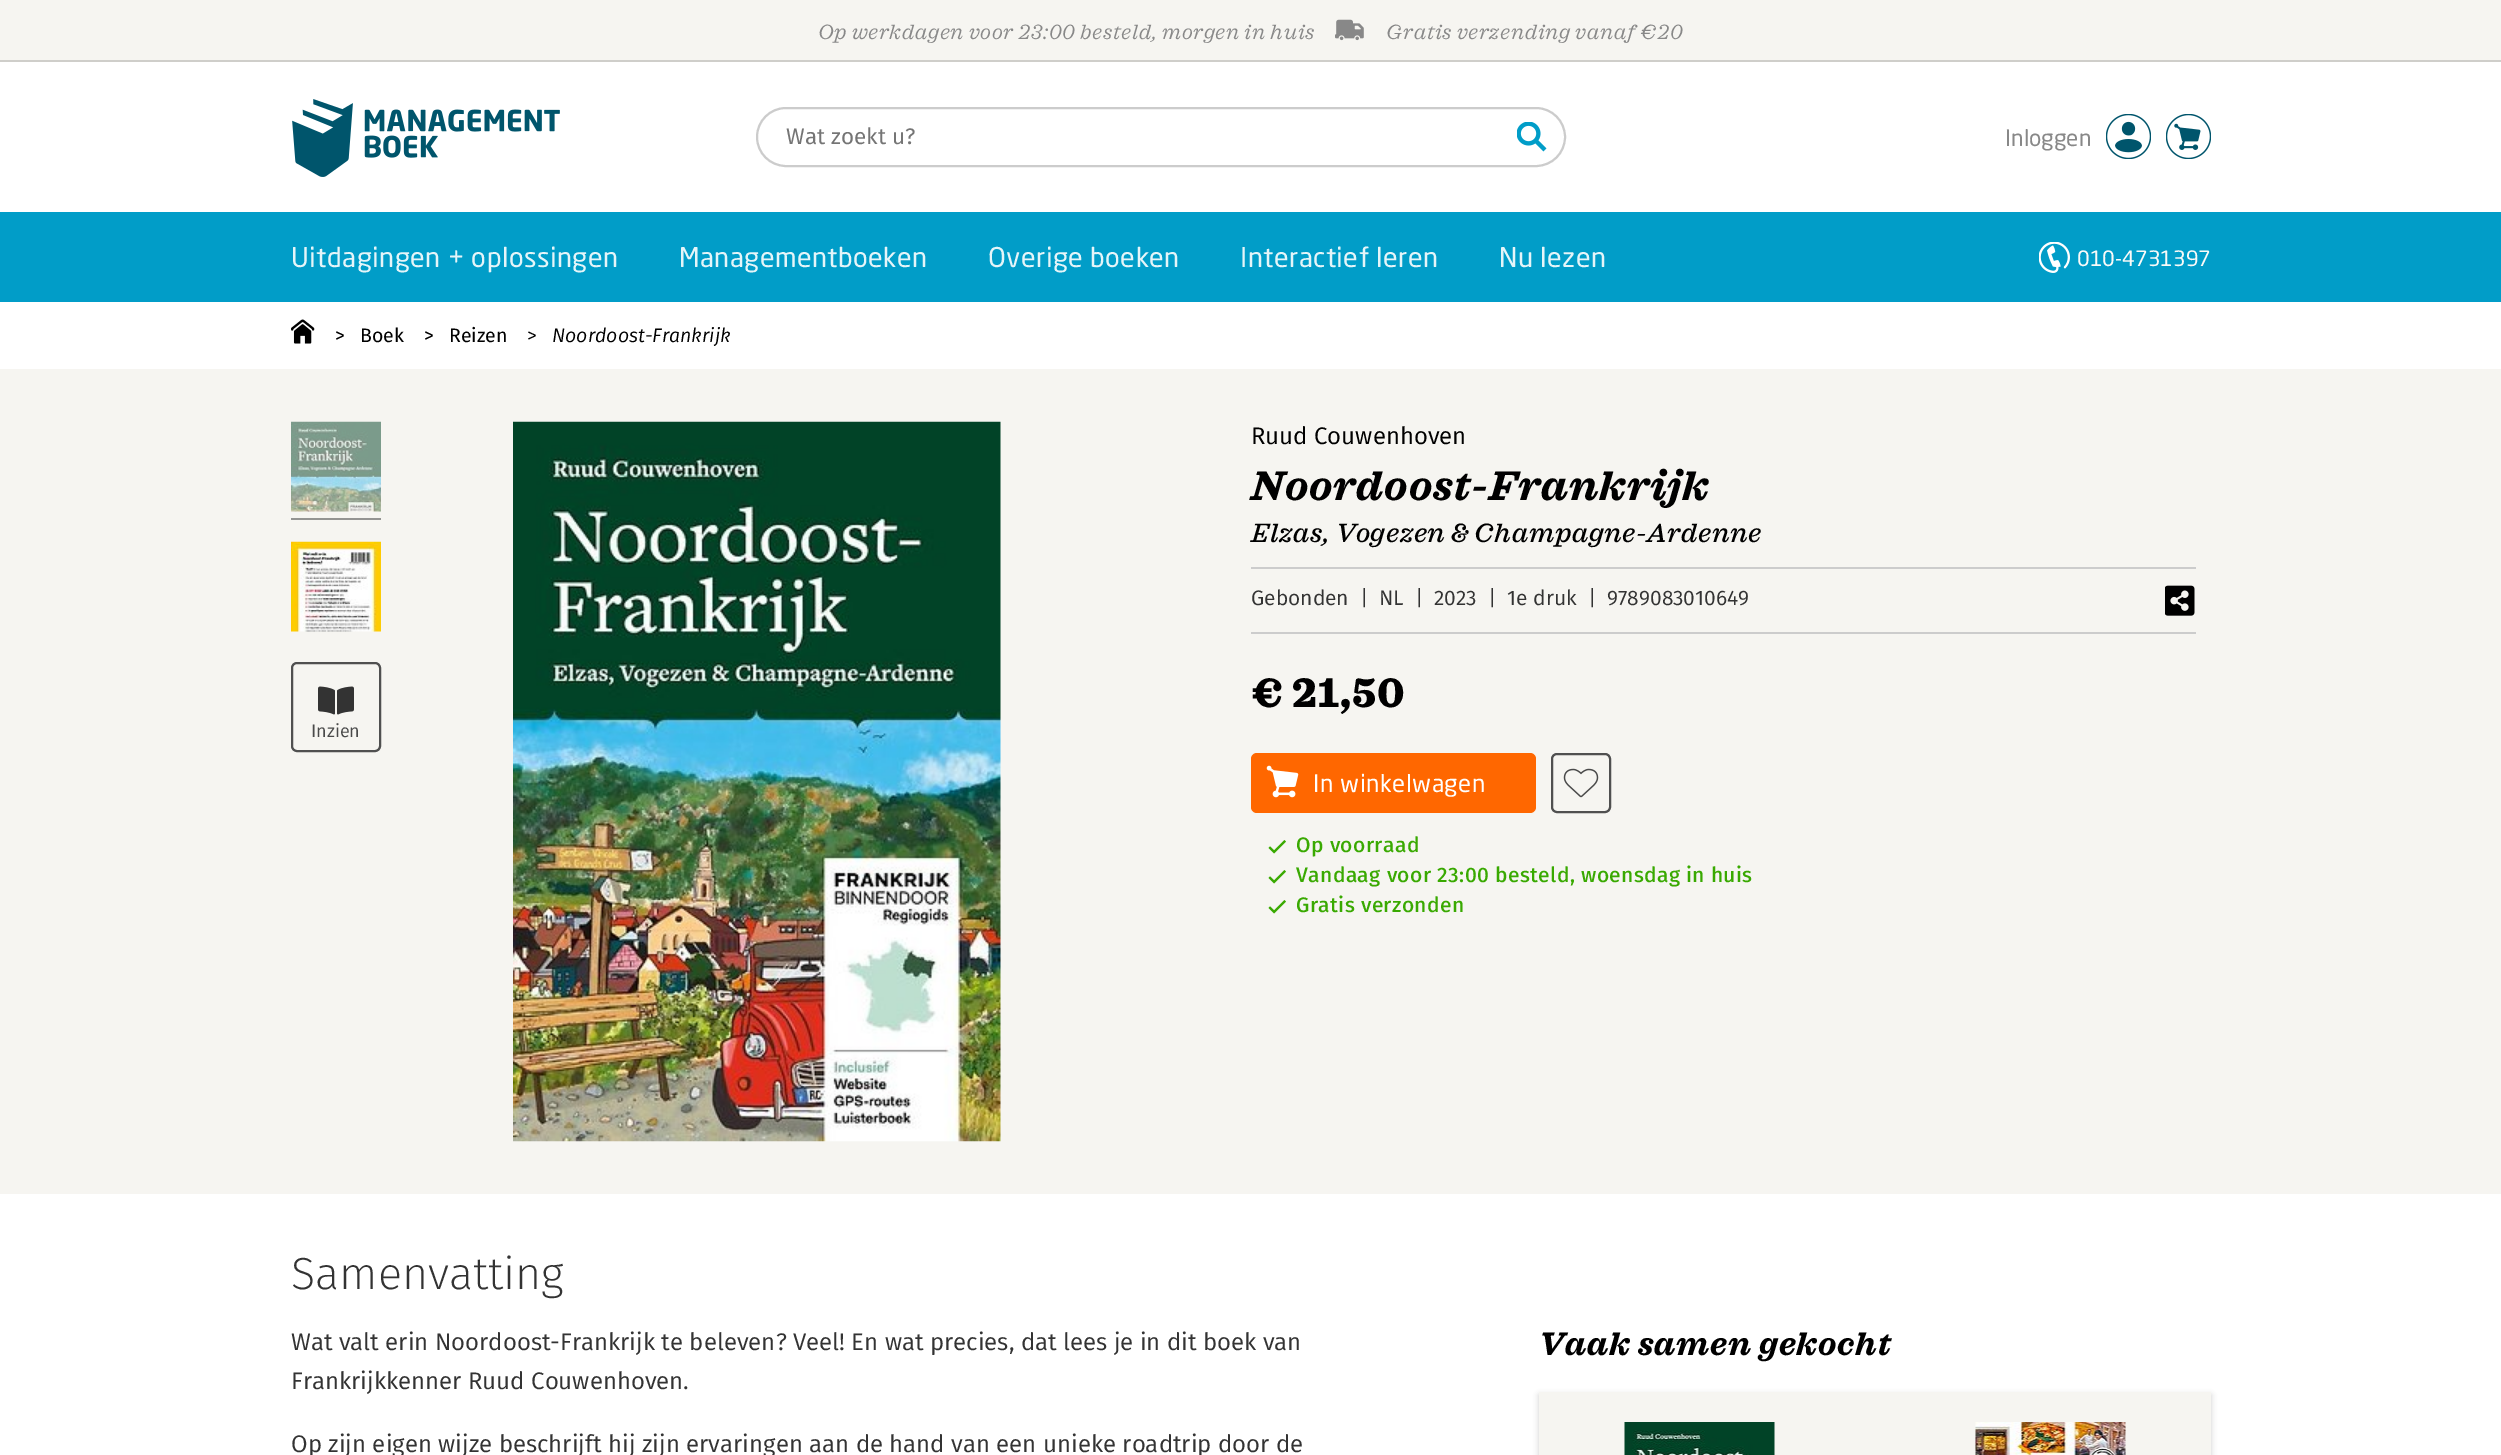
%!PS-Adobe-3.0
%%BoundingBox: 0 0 2501 1455
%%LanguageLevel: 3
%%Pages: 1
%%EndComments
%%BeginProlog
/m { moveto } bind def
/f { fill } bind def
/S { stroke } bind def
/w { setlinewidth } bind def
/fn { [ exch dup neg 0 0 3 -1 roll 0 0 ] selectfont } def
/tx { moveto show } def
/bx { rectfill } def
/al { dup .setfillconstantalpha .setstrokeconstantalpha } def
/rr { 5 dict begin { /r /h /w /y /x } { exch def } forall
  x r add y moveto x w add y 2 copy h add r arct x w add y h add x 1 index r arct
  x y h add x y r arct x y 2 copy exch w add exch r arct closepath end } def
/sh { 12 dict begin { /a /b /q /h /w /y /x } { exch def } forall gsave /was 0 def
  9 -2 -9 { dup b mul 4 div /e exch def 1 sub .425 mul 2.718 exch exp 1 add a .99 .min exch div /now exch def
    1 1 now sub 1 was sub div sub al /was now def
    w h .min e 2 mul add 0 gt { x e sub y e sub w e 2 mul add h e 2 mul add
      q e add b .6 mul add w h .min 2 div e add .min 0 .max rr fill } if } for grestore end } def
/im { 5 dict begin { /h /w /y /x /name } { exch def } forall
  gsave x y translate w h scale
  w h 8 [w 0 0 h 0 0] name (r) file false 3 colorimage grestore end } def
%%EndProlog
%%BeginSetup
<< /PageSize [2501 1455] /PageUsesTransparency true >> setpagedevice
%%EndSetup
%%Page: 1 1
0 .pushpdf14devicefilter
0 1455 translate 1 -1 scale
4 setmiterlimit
1 setgray
0 0 2501 1455 bx
0.965 0.961 0.945 setrgbcolor
0 0 2501 60 bx
0.812 0.808 0.792 setrgbcolor
0 60 2501 2 bx
/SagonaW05-Italic 21 fn
0.533 setgray
818 39 m 0.65 0 (Op werkdagen voor 23:00 besteld, morgen in huis) ashow
(image0.raw) 1335 19 29 22 im
1386 39 m 0.65 0 (Gratis verzending vanaf €20) ashow
(image1.raw) 292 99 268 78 im
(image2.raw) 1517 122 30 30 im
0.8 setgray
2 w
757 108 808 58 29 rr S
/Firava-Regular 22.5 fn
0.459 setgray
(Wat zoekt u?) 786 144 tx
/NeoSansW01-Regular 22.5 fn
0.533 setgray
(Inloggen) 2005 146 tx
(image3.raw) 2106 114 45 45 im
(image4.raw) 2166 114 45 45 im
0.004 0.616 0.784 setrgbcolor
0 212 2501 90 bx
/NeoSansW01-Regular 27 fn
0.898 0.961 0.976 setrgbcolor
291 267 m 0.4 0 (Uitdagingen + oplossingen) ashow
679 267 m 0.4 0 (Managementboeken) ashow
988 267 m 0.4 0 (Overige boeken) ashow
1240 267 m 0.4 0 (Interactief leren) ashow
1499 267 m 0.4 0 (Nu lezen) ashow
(image5.raw) 2039 242 31 31 im
/NeoSansW01-Regular 21 fn
0.98 0.98 0.973 setrgbcolor
(010-4731397) 2077 266 tx
(image6.raw) 291 319 24 25 im
/Firava-Regular 19.5 fn
0 setgray
(>) 335 342 tx
(Boek) 360 342 tx
(>) 424 342 tx
(Reizen) 449 342 tx
/Firava-Light 19.5 fn
(>) 527 342 tx
/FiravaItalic-LightItalic 19.5 fn
(Noordoost-Frankrijk) 552 342 tx
0.965 0.961 0.945 setrgbcolor
0 369 2501 825 bx
(image7.raw) 291 421 90 91 im
0.58 0.58 0.573 setrgbcolor
291 518 90 2 bx
(image8.raw) 291 541 90 91 im
(image9.raw) 318 686 36 29 im
0.314 setgray
292 663 88 88 5 rr S
/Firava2-Regular 18 fn
0.29 setgray
(Inzien) 311 737 tx
(image10.raw) 513 421 488 721 im
/Firava2-Regular 24 fn
0 setgray
(Ruud Couwenhoven) 1251 444 tx
0.8 setgray
1251 567 945 2 bx
/SagonaW05-BoldItalic 42 fn
0 setgray
1251 500 m 0.8 0 (Noordoost-Frankrijk) ashow
/SagonaW05-MediumItalic 27 fn
1251 542 m 0.55 0 (Elzas, Vogezen & Champagne-Ardenne) ashow
0.8 setgray
1251 632 945 2 bx
/Firava2-Regular 21 fn
0.2 setgray
(Gebonden) 1251 605 tx
(|) 1360 605 tx
(NL) 1379 605 tx
(|) 1415 605 tx
(2023) 1434 605 tx
(|) 1488 605 tx
(1e druk) 1507 605 tx
(|) 1588 605 tx
(9789083010649) 1607 605 tx
(image11.raw) 2165 585 30 31 im
/SagonaW05-Black 42 fn
0 setgray
1251 707 m 0.8 0 (€ 21,50) ashow
1 0.404 0 setrgbcolor
1251 753 285 60 6 rr f
(image12.raw) 1266 765 33 33 im
/NeoSansW01-Regular 24 fn
1 setgray
1313 792 m 0.5 0 (In winkelwagen) ashow
(image13.raw) 1563 768 36 30 im
0.314 setgray
1552 754 58 58 5 rr S
(image14.raw) 1268 840 18 14 im
/Firava-Medium 21 fn
0.224 0.663 0.004 setrgbcolor
1296 852 m 0.4 0 (Op voorraad) ashow
(image14.raw) 1268 870 18 14 im
1296 882 m 0.4 0 (Vandaag voor 23:00 besteld, woensdag in huis) ashow
(image14.raw) 1268 900 18 14 im
1296 912 m 0.4 0 (Gratis verzonden) ashow
/Firava-ExtraLight 45 fn
0.2 setgray
(Samenvatting) 291 1289 tx
/Firava2-Regular 24 fn
(Wat valt erin Noordoost-Frankrijk te beleven? Veel! En wat precies, dat lees je in dit boek van) 291 1350 tx
(Frankrijkkenner Ruud Couwenhoven.) 291 1389 tx
(Op zijn eigen wijze beschrijft hij zijn ervaringen aan de hand van een unieke roadtrip door de) 291 1452 tx
/SagonaW05-BoldItalic 33 fn
0 setgray
1539 1355 m 0.7 0 (Vaak samen gekocht) ashow
0.8 setgray
1539 1395 672 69 0 3 1 sh
0.965 0.961 0.945 setrgbcolor
1539 1392 672 63 bx
(image15.raw) 1624 1422 151 33 im
(image16.raw) 1975 1422 151 33 im
.poppdf14devicefilter showpage
%%EOF
